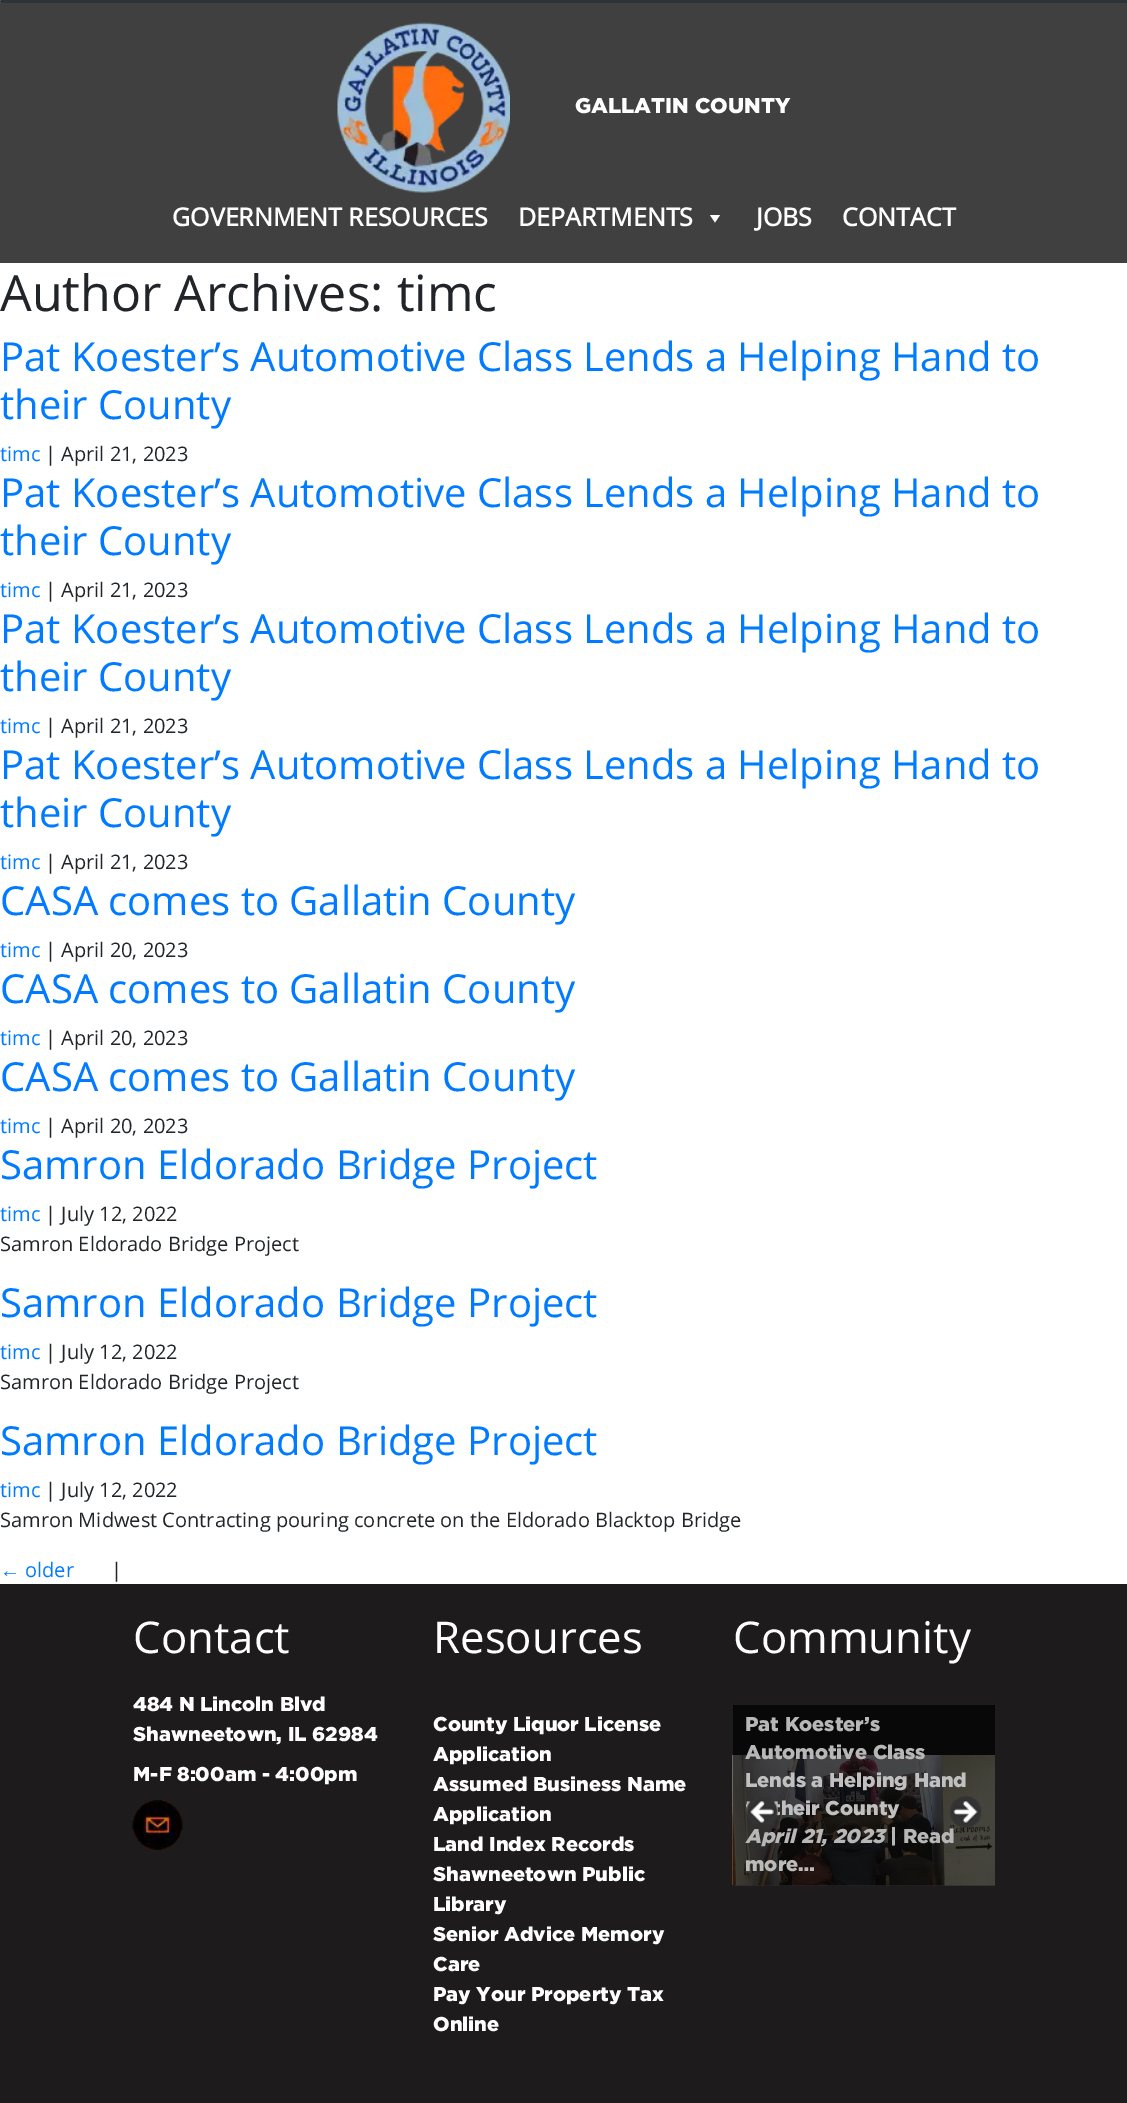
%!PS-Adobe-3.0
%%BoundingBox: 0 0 1127 2103
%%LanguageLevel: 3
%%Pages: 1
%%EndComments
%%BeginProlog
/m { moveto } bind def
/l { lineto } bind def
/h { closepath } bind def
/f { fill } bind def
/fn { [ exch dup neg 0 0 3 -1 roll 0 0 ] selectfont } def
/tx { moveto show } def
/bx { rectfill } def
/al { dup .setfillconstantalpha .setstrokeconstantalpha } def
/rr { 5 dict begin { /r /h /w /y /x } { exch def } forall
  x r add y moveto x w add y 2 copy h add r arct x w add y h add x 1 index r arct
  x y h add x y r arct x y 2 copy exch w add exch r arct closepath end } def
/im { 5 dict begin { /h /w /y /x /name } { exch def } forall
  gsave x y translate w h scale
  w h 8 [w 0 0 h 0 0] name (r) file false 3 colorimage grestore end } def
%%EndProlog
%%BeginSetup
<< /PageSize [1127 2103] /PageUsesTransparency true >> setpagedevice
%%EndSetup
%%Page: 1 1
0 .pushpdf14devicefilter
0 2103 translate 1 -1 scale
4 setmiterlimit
1 setgray
0 0 1127 2103 bx
0.204 0.227 0.251 setrgbcolor
0 0 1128 3 1.5 rr f
0.12 al
0 setgray
0 0 1127 3 bx
1 al
0.251 setgray
0 3 1127 260 bx
(image0.raw) 337 22 173 171 im
/Gotham-Black 21.25 fn
1 setgray
(GALLATIN COUNTY) 575 113 tx
/OpenSans-Bold 25 fn
(GOVERNMENT RESOURCES) 172 226 tx
(DEPARTMENTS) 518 226 tx
720 215 m 715 222.5 l 710 215 l h f
(JOBS) 756 226 tx
(CONTACT) 842 226 tx
/OpenSans-Regular 50 fn
0.129 0.145 0.161 setrgbcolor
(Author Archives: timc) 0 311 tx
/OpenSans-Regular 40 fn
0 0.482 1 setrgbcolor
(Pat Koester’s Automotive Class Lends a Helping Hand to) 0 371 tx
(their County) 0 419 tx
/OpenSans-Regular 20 fn
(timc) 0 461 tx
0.129 0.145 0.161 setrgbcolor
(| April 21, 2023) 45 461 tx
/OpenSans-Regular 40 fn
0 0.482 1 setrgbcolor
(Pat Koester’s Automotive Class Lends a Helping Hand to) 0 507 tx
(their County) 0 555 tx
/OpenSans-Regular 20 fn
(timc) 0 597 tx
0.129 0.145 0.161 setrgbcolor
(| April 21, 2023) 45 597 tx
/OpenSans-Regular 40 fn
0 0.482 1 setrgbcolor
(Pat Koester’s Automotive Class Lends a Helping Hand to) 0 643 tx
(their County) 0 691 tx
/OpenSans-Regular 20 fn
(timc) 0 733 tx
0.129 0.145 0.161 setrgbcolor
(| April 21, 2023) 45 733 tx
/OpenSans-Regular 40 fn
0 0.482 1 setrgbcolor
(Pat Koester’s Automotive Class Lends a Helping Hand to) 0 779 tx
(their County) 0 827 tx
/OpenSans-Regular 20 fn
(timc) 0 869 tx
0.129 0.145 0.161 setrgbcolor
(| April 21, 2023) 45 869 tx
/OpenSans-Regular 40 fn
0 0.482 1 setrgbcolor
(CASA comes to Gallatin County) 0 915 tx
/OpenSans-Regular 20 fn
(timc) 0 957 tx
0.129 0.145 0.161 setrgbcolor
(| April 20, 2023) 45 957 tx
/OpenSans-Regular 40 fn
0 0.482 1 setrgbcolor
(CASA comes to Gallatin County) 0 1003 tx
/OpenSans-Regular 20 fn
(timc) 0 1045 tx
0.129 0.145 0.161 setrgbcolor
(| April 20, 2023) 45 1045 tx
/OpenSans-Regular 40 fn
0 0.482 1 setrgbcolor
(CASA comes to Gallatin County) 0 1091 tx
/OpenSans-Regular 20 fn
(timc) 0 1133 tx
0.129 0.145 0.161 setrgbcolor
(| April 20, 2023) 45 1133 tx
/OpenSans-Regular 40 fn
0 0.482 1 setrgbcolor
(Samron Eldorado Bridge Project) 0 1179 tx
/OpenSans-Regular 20 fn
(timc) 0 1221 tx
0.129 0.145 0.161 setrgbcolor
(| July 12, 2022) 45 1221 tx
(Samron Eldorado Bridge Project) 0 1251 tx
/OpenSans-Regular 40 fn
0 0.482 1 setrgbcolor
(Samron Eldorado Bridge Project) 0 1317 tx
/OpenSans-Regular 20 fn
(timc) 0 1359 tx
0.129 0.145 0.161 setrgbcolor
(| July 12, 2022) 45 1359 tx
(Samron Eldorado Bridge Project) 0 1389 tx
/OpenSans-Regular 40 fn
0 0.482 1 setrgbcolor
(Samron Eldorado Bridge Project) 0 1455 tx
/OpenSans-Regular 20 fn
(timc) 0 1497 tx
0.129 0.145 0.161 setrgbcolor
(| July 12, 2022) 45 1497 tx
(Samron Midwest Contracting pouring concrete on the Eldorado Blacktop Bridge) 0 1527 tx
/LiberationSans-Regular 20 fn
0 0.482 1 setrgbcolor
(←) 0 1577 tx
/OpenSans-Regular 20 fn
(older) 25 1577 tx
0.129 0.145 0.161 setrgbcolor
(|) 111 1577 tx
0.114 0.106 0.11 setrgbcolor
0 1584 1127 519 bx
/OpenSans-Regular 43.75 fn
1 setgray
(Contact) 133 1653 tx
/Gotham-Black 20 fn
(484 N Lincoln Blvd) 133 1711 tx
(Shawneetown, IL 62984) 133 1741 tx
(M-F 8:00am - 4:00pm) 133 1781 tx
(image1.raw) 132 1800 51 50 im
/OpenSans-Regular 43.75 fn
(Resources) 433 1653 tx
/Gotham-Black 20 fn
(County Liquor License) 433 1731 tx
(Application) 433 1761 tx
(Assumed Business Name) 433 1791 tx
(Application) 433 1821 tx
(Land Index Records) 433 1851 tx
(Shawneetown Public) 433 1881 tx
(Library) 433 1911 tx
(Senior Advice Memory) 433 1941 tx
(Care) 433 1971 tx
(Pay Your Property Tax) 433 2001 tx
(Online) 433 2031 tx
/OpenSans-Regular 43.75 fn
(Community) 733 1653 tx
(image2.raw) 732 1755 263 131 im
0.7 al
0 setgray
733 1705 262 180 bx
/Gotham-Black 20 fn
1 al
0.718 setgray
(Pat Koester’s) 745 1731 tx
(Automotive Class) 745 1759 tx
0.753 setgray
(Lends a Helping Hand) 745 1787 tx
(their County) 772 1815 tx
/Gotham-BlackItalic 20 fn
0.718 setgray
(April 21, 2023) 745 1843 tx
/Gotham-Black 20 fn
(|) 890 1843 tx
(Read) 903 1843 tx
0.741 0.733 0.729 setrgbcolor
(more…) 745 1871 tx
(image3.raw) 746 1797 32 27 im
(image4.raw) 950 1796 32 32 im
.poppdf14devicefilter showpage
%%EOF
